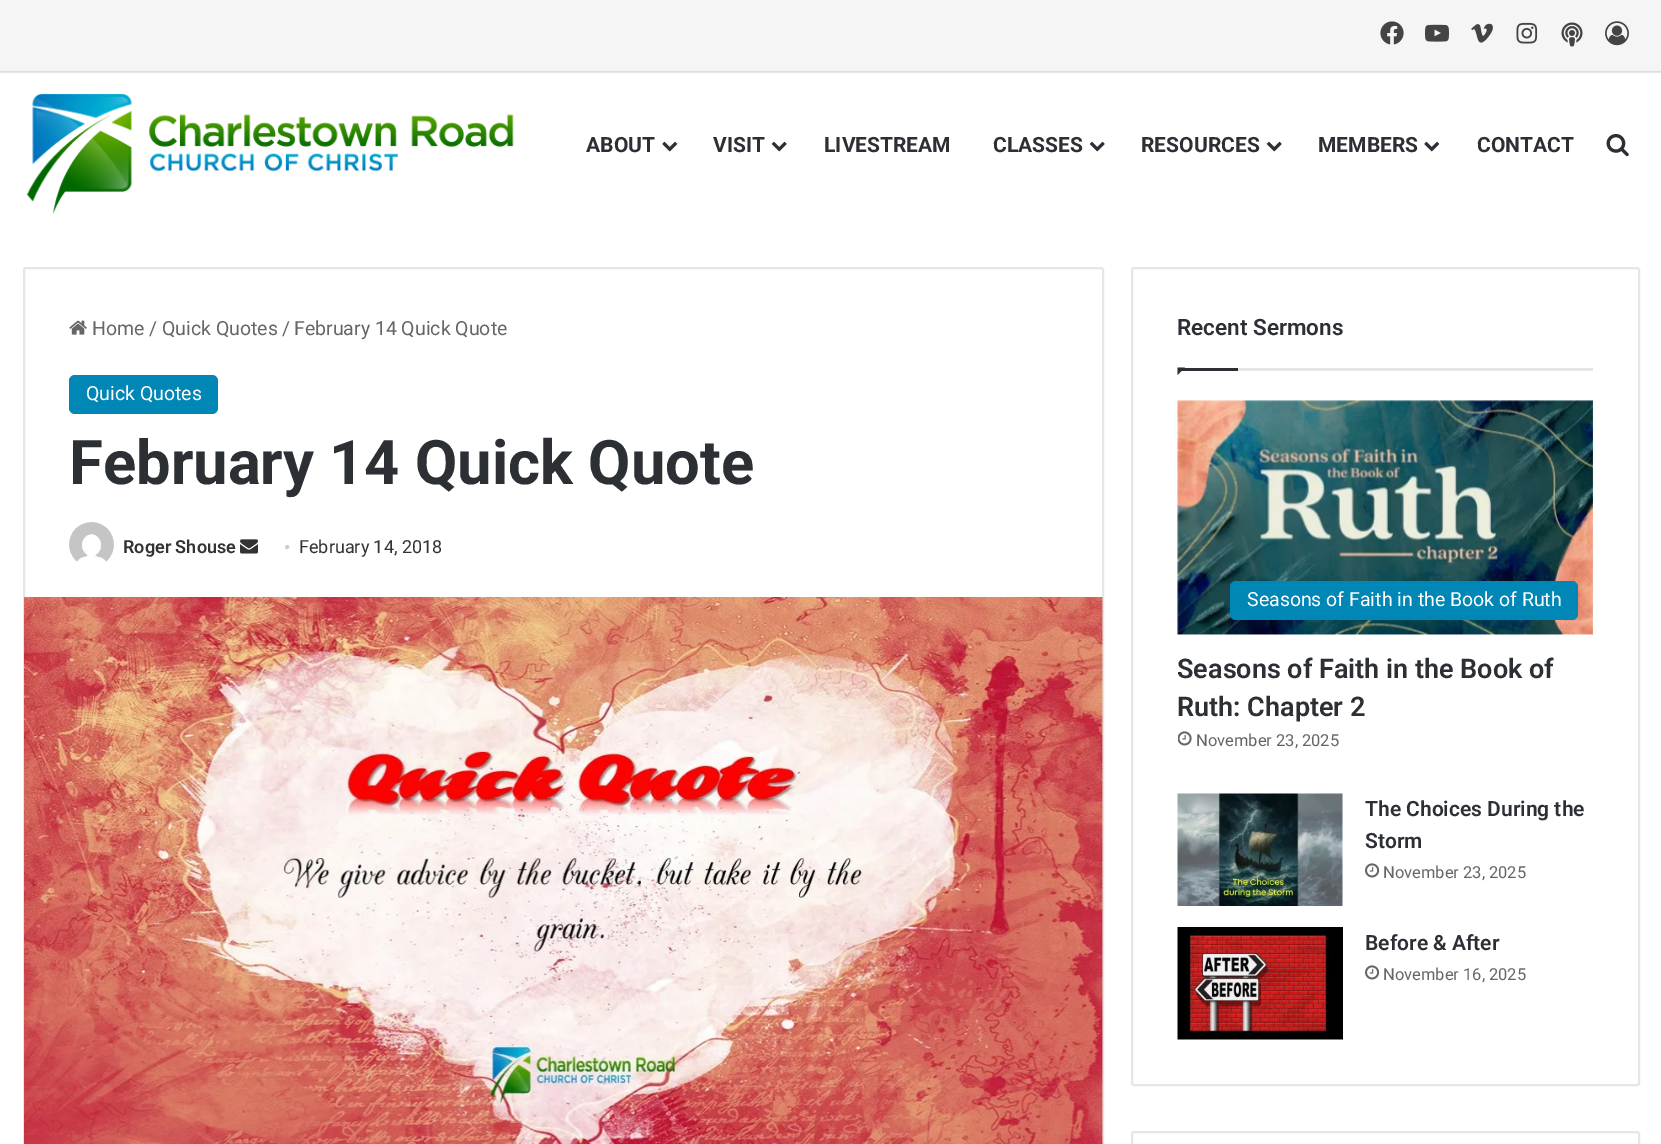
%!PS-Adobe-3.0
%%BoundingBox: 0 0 1661 1144
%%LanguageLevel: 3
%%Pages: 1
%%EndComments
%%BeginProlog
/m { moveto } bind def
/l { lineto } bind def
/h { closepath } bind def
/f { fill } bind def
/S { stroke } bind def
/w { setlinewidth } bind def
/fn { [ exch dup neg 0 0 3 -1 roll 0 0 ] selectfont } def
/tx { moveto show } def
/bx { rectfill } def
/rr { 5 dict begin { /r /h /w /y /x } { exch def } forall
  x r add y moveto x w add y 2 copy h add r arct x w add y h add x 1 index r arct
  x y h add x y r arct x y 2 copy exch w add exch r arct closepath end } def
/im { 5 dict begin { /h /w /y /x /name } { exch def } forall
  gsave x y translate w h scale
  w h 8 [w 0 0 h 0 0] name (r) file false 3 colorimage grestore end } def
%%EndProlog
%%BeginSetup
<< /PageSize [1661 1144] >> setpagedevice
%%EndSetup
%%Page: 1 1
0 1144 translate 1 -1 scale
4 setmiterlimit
1 setgray
0 0 1661 1144 bx
0.902 setgray
0 72 1661 1 bx
0.961 setgray
0 0 1661 71 bx
0.867 setgray
0 71 1661 1 bx
(image0.raw) 1380 21 24 24 im
(image1.raw) 1425 24 24 18 im
(image2.raw) 1471 23 22 20 im
(image3.raw) 1516 22 22 22 im
(image4.raw) 1561 22 22 25 im
(image5.raw) 1605 21 24 25 im
(image6.raw) 26 93 488 121 im
/Roboto-Bold 21 fn
0.173 0.184 0.204 setrgbcolor
(ABOUT) 586 152 tx
(image7.raw) 662 141 16 11 im
(VISIT) 713 152 tx
(image8.raw) 771 141 16 11 im
(LIVESTREAM) 824 152 tx
(CLASSES) 993 152 tx
(image8.raw) 1089 141 16 11 im
(RESOURCES) 1141 152 tx
(image8.raw) 1266 141 16 11 im
(MEMBERS) 1318 152 tx
(image7.raw) 1424 141 16 11 im
(CONTACT) 1477 152 tx
(image9.raw) 1606 133 23 24 im
0.902 setgray
2 w
24 268 1079 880 2 rr S
(image10.raw) 69 320 18 15 im
/Roboto-Regular 19.5 fn
0.4 setgray
(Home) 92 335 tx
(/) 149 335 tx
(Quick Quotes) 162 335 tx
(/) 282 335 tx
(February 14 Quick Quote) 294 335 tx
0 0.529 0.714 setrgbcolor
69 375 149 39 6 rr f
1 setgray
(Quick Quotes) 86 400 tx
/Roboto-Bold 61.5 fn
0.173 0.184 0.204 setrgbcolor
(February 14 Quick Quote) 69 484 tx
(image11.raw) 69 522 45 40 im
/Roboto-SemiBold 18 fn
0.2 setgray
(Roger Shouse) 123 553 tx
(image12.raw) 240 539 18 15 im
/LiberationSerif-Regular 18 fn
0.8 setgray
(•) 284 553 tx
/Roboto-Regular 18 fn
0.2 setgray
(February 14, 2018) 299 553 tx
(image13.raw) 24 597 1079 547 im
0.902 setgray
1132 268 507 817 2 rr S
1238 368 355 3 bx
/Roboto-SemiBold 22.5 fn
0.173 0.184 0.204 setrgbcolor
(Recent Sermons) 1177 335 tx
1177.5 367.5 m 1185 367.5 l 1177.5 375 l h f
1178 368 60 3 bx
(image14.raw) 1177 400 416 235 im
0 0.529 0.714 setrgbcolor
1230 581 348 39 6 rr f
/Roboto-Regular 19.5 fn
1 setgray
(Seasons of Faith in the Book of Ruth) 1247 606 tx
/Roboto-SemiBold 27 fn
0.173 0.184 0.204 setrgbcolor
(Seasons of Faith in the Book of) 1177 678 tx
(Ruth: Chapter 2) 1177 716 tx
(image15.raw) 1178 731 14 15 im
/Roboto-Regular 16.5 fn
0.4 setgray
(November 23, 2025) 1196 746 tx
(image16.raw) 1177 793 166 113 im
/Roboto-SemiBold 21 fn
0.173 0.184 0.204 setrgbcolor
(The Choices During the) 1365 816 tx
(Storm) 1365 848 tx
(image17.raw) 1365 863 15 15 im
/Roboto-Regular 16.5 fn
0.4 setgray
(November 23, 2025) 1383 878 tx
(image18.raw) 1177 927 166 113 im
/Roboto-SemiBold 21 fn
0.173 0.184 0.204 setrgbcolor
(Before & After) 1365 950 tx
(image17.raw) 1365 965 15 15 im
/Roboto-Regular 16.5 fn
0.4 setgray
(November 16, 2025) 1383 980 tx
0.902 setgray
1132 1132 507 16 2 rr S
showpage
%%EOF
